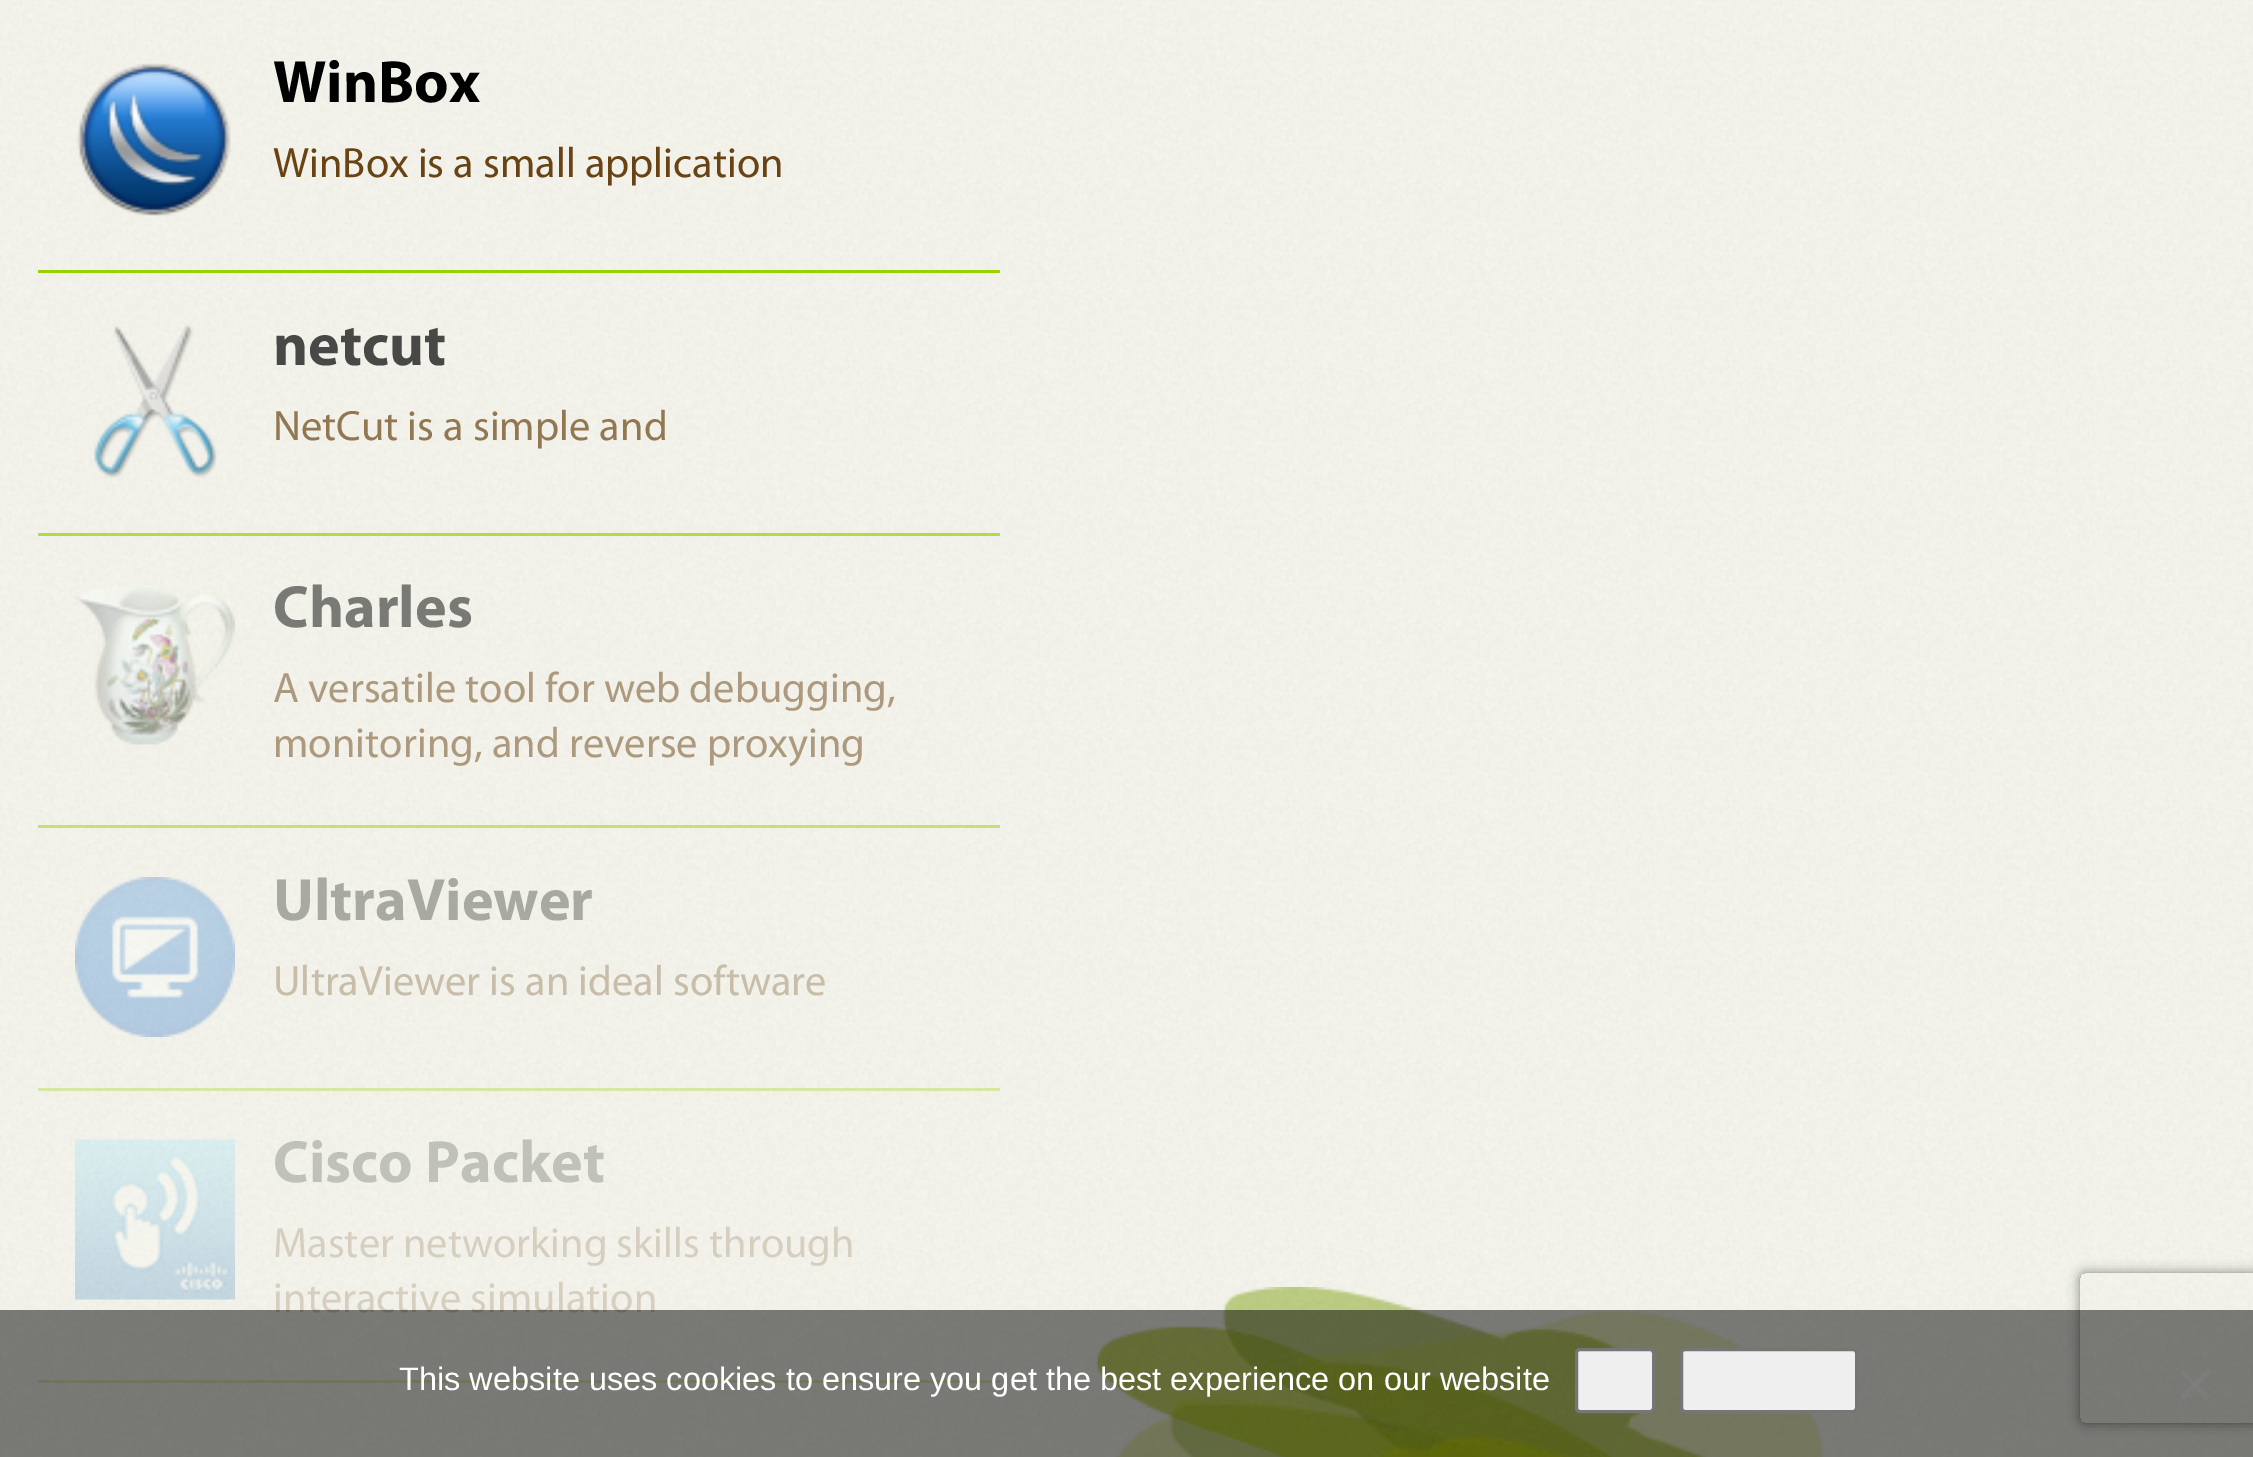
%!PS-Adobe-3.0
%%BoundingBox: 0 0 2253 1457
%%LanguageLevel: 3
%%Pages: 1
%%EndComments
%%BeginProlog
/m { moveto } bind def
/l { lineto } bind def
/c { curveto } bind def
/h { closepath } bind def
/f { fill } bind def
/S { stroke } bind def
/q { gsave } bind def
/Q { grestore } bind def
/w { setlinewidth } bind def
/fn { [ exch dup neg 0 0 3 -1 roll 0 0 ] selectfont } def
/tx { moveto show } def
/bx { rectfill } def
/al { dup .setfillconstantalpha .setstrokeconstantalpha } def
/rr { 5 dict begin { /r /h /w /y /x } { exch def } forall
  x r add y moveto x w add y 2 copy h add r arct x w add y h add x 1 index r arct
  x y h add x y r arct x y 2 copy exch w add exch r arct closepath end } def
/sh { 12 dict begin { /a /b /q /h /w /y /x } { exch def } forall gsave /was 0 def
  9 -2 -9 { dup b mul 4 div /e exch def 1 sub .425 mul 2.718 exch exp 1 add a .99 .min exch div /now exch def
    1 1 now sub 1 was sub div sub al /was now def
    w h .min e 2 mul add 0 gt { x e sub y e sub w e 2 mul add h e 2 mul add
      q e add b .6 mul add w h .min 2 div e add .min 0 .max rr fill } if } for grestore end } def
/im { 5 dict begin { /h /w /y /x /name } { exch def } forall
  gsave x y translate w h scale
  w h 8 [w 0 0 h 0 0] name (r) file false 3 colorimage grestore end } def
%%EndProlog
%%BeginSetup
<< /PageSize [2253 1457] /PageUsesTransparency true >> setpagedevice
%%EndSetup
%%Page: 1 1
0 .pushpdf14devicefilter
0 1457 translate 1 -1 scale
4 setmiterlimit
1 setgray
0 0 2253 1457 bx
(image0.raw) 0 0 2253 1457 im
0.592 0.82 0.004 setrgbcolor
38 270 962 3 bx
(image1.raw) 77 63 154 153 im
/Myriad-Bold 60 fn
0 setgray
(WinBox) 273 102 tx
/Myriad-Regular 42.5 fn
0.412 0.263 0.075 setrgbcolor
(WinBox is a small application) 273 177 tx
0.7 al
0.592 0.82 0.004 setrgbcolor
38 533 962 3 bx
1 al
(image2.raw) 94 324 123 154 im
/Myriad-Bold 60 fn
0.282 0.282 0.275 setrgbcolor
(netcut) 273 365 tx
/Myriad-Regular 42.5 fn
0.573 0.467 0.325 setrgbcolor
(NetCut is a simple and) 273 440 tx
0.5 al
0.592 0.82 0.004 setrgbcolor
38 825 962 3 bx
1 al
(image3.raw) 75 585 160 160 im
/Myriad-Bold 60 fn
0.475 0.475 0.459 setrgbcolor
(Charles) 273 627 tx
/Myriad-Regular 42.5 fn
0.678 0.604 0.494 setrgbcolor
(A versatile tool for web debugging,) 273 702 tx
(monitoring, and reverse proxying) 273 757 tx
0.3 al
0.592 0.82 0.004 setrgbcolor
38 1088 962 3 bx
1 al
(image4.raw) 75 877 160 160 im
/Myriad-Bold 60 fn
0.663 0.663 0.643 setrgbcolor
(UltraViewer) 273 920 tx
/Myriad-Regular 42.5 fn
0.784 0.741 0.663 setrgbcolor
(UltraViewer is an ideal software) 273 995 tx
0.2 al
0.592 0.82 0.004 setrgbcolor
38 1380 962 3 bx
1 al
(image5.raw) 75 1139 160 161 im
/Myriad-Bold 60 fn
0.757 0.757 0.733 setrgbcolor
(Cisco Packet) 273 1182 tx
/Myriad-Regular 42.5 fn
0.839 0.812 0.749 setrgbcolor
(Master networking skills through) 273 1257 tx
(interactive simulation) 273 1312 tx
(image6.raw) 1097 1287 726 170 im
q
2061 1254 m 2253 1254 l 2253 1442 l 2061 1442 l h 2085 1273 m 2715 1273 l 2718 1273 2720 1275 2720 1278 c 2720 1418 l 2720 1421 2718 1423 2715 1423 c 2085 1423 l 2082 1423 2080 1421 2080 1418 c 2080 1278 l 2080 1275 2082 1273 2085 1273 c h eoclip newpath
0.502 setgray
2080 1273 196 150 5 6 1 sh
Q
0.5 al
0 setgray
0 1310 2253 147 bx
/LiberationSans-Regular 32.5 fn
1 al
1 setgray
(This website uses cookies to ensure you get the best experience on our website) 399 1390 tx
0.937 setgray
1576.5 1349.5 77 62 3.5 rr q f Q
0.463 setgray
3 w
S
0.937 setgray
1681.5 1349.5 175 62 3.5 rr q f Q
0.463 setgray
S
0.5 al
0.502 setgray
2206.5 1370 m 2210 1373.5 l 2183.5 1400 l 2180 1396.5 l h f
2180 1373.5 m 2183.5 1370 l 2210 1396.5 l 2206.5 1400 l h f
.poppdf14devicefilter showpage
%%EOF
